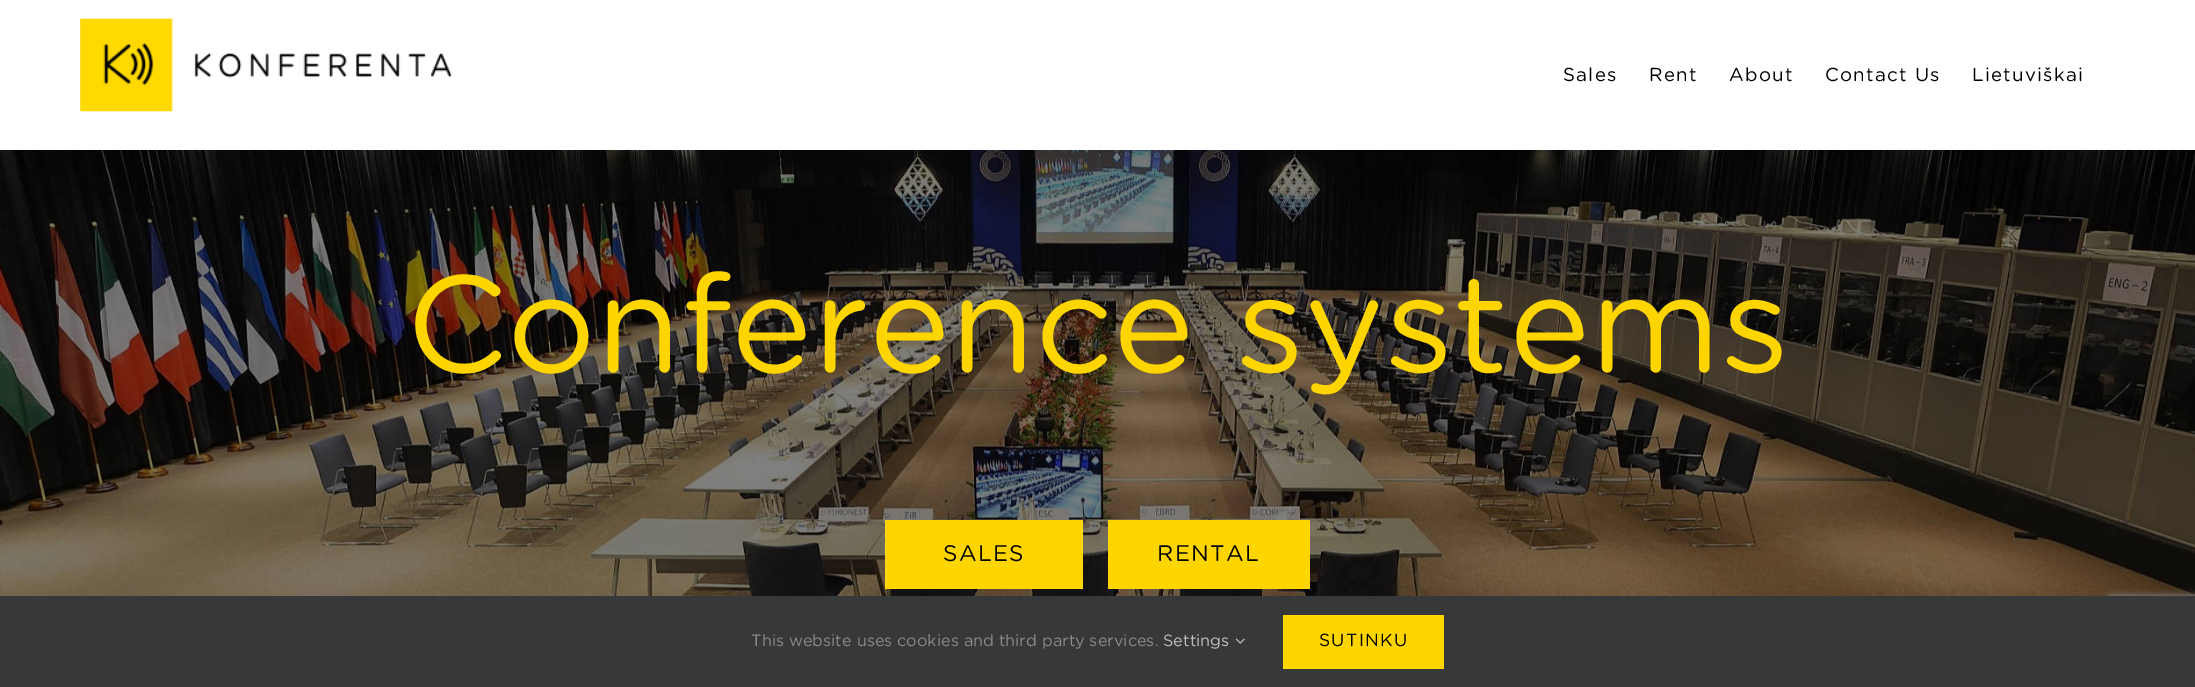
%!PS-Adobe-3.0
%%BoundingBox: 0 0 2195 687
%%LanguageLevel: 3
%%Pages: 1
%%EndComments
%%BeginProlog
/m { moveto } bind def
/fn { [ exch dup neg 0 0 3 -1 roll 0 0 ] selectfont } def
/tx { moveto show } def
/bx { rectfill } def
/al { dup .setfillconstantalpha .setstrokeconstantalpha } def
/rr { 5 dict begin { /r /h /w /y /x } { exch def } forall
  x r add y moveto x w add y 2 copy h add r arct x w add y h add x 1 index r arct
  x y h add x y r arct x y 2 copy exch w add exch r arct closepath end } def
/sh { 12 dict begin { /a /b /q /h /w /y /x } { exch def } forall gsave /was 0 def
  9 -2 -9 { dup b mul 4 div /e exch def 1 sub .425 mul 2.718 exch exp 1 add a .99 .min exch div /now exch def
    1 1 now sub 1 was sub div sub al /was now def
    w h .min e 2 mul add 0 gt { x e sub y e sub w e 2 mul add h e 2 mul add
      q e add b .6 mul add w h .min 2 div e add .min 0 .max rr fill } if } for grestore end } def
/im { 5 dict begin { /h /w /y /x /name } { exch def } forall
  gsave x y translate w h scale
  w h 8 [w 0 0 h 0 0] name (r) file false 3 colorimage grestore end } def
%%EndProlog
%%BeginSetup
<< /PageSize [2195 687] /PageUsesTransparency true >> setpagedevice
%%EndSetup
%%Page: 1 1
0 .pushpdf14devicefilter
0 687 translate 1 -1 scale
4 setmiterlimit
1 setgray
0 0 2195 687 bx
(image1.raw) 0 150 2195 446 im
0 setgray
3 15 2190 145 0 31 0.14 sh
1 setgray
0 0 2195 150 bx
(image0.raw) 79 18 373 94 im
/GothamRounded-Regular 18.75 fn
0 setgray
1563 81 m 1.25 0 (Sales) ashow
1649 81 m 1.25 0 (Rent) ashow
1729 81 m 1.25 0 (About) ashow
1825 81 m 1.25 0 (Contact Us) ashow
1972 81 m 1.25 0 (Lietuviškai) ashow
/GothamRounded-Regular 137.5 fn
1 0.835 0 setrgbcolor
(Conference systems) 406 372 tx
885 520 198 69 bx
/GothamRounded-Regular 22.5 fn
0 setgray
943 561 m 1.25 0 (SALES) ashow
1 0.835 0 setrgbcolor
1108 520 202 69 bx
0 setgray
1157 561 m 1.25 0 (RENTAL) ashow
0.502 setgray
2108 595 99 75 2.5 3 1 sh
0.212 0.22 0.224 setrgbcolor
0 596 2195 91 bx
/GothamRounded-Regular 16.25 fn
0.549 0.537 0.537 setrgbcolor
(This website uses cookies and third party services.) 751 646 tx
0.749 setgray
(Settings) 1163 646 tx
(image2.raw) 1235 638 10 6 im
1 0.835 0 setrgbcolor
1283 615 161 54 bx
/GothamRounded-Regular 17.5 fn
0 setgray
1319 646 m 1.25 0 (SUTINKU) ashow
.poppdf14devicefilter showpage
%%EOF
